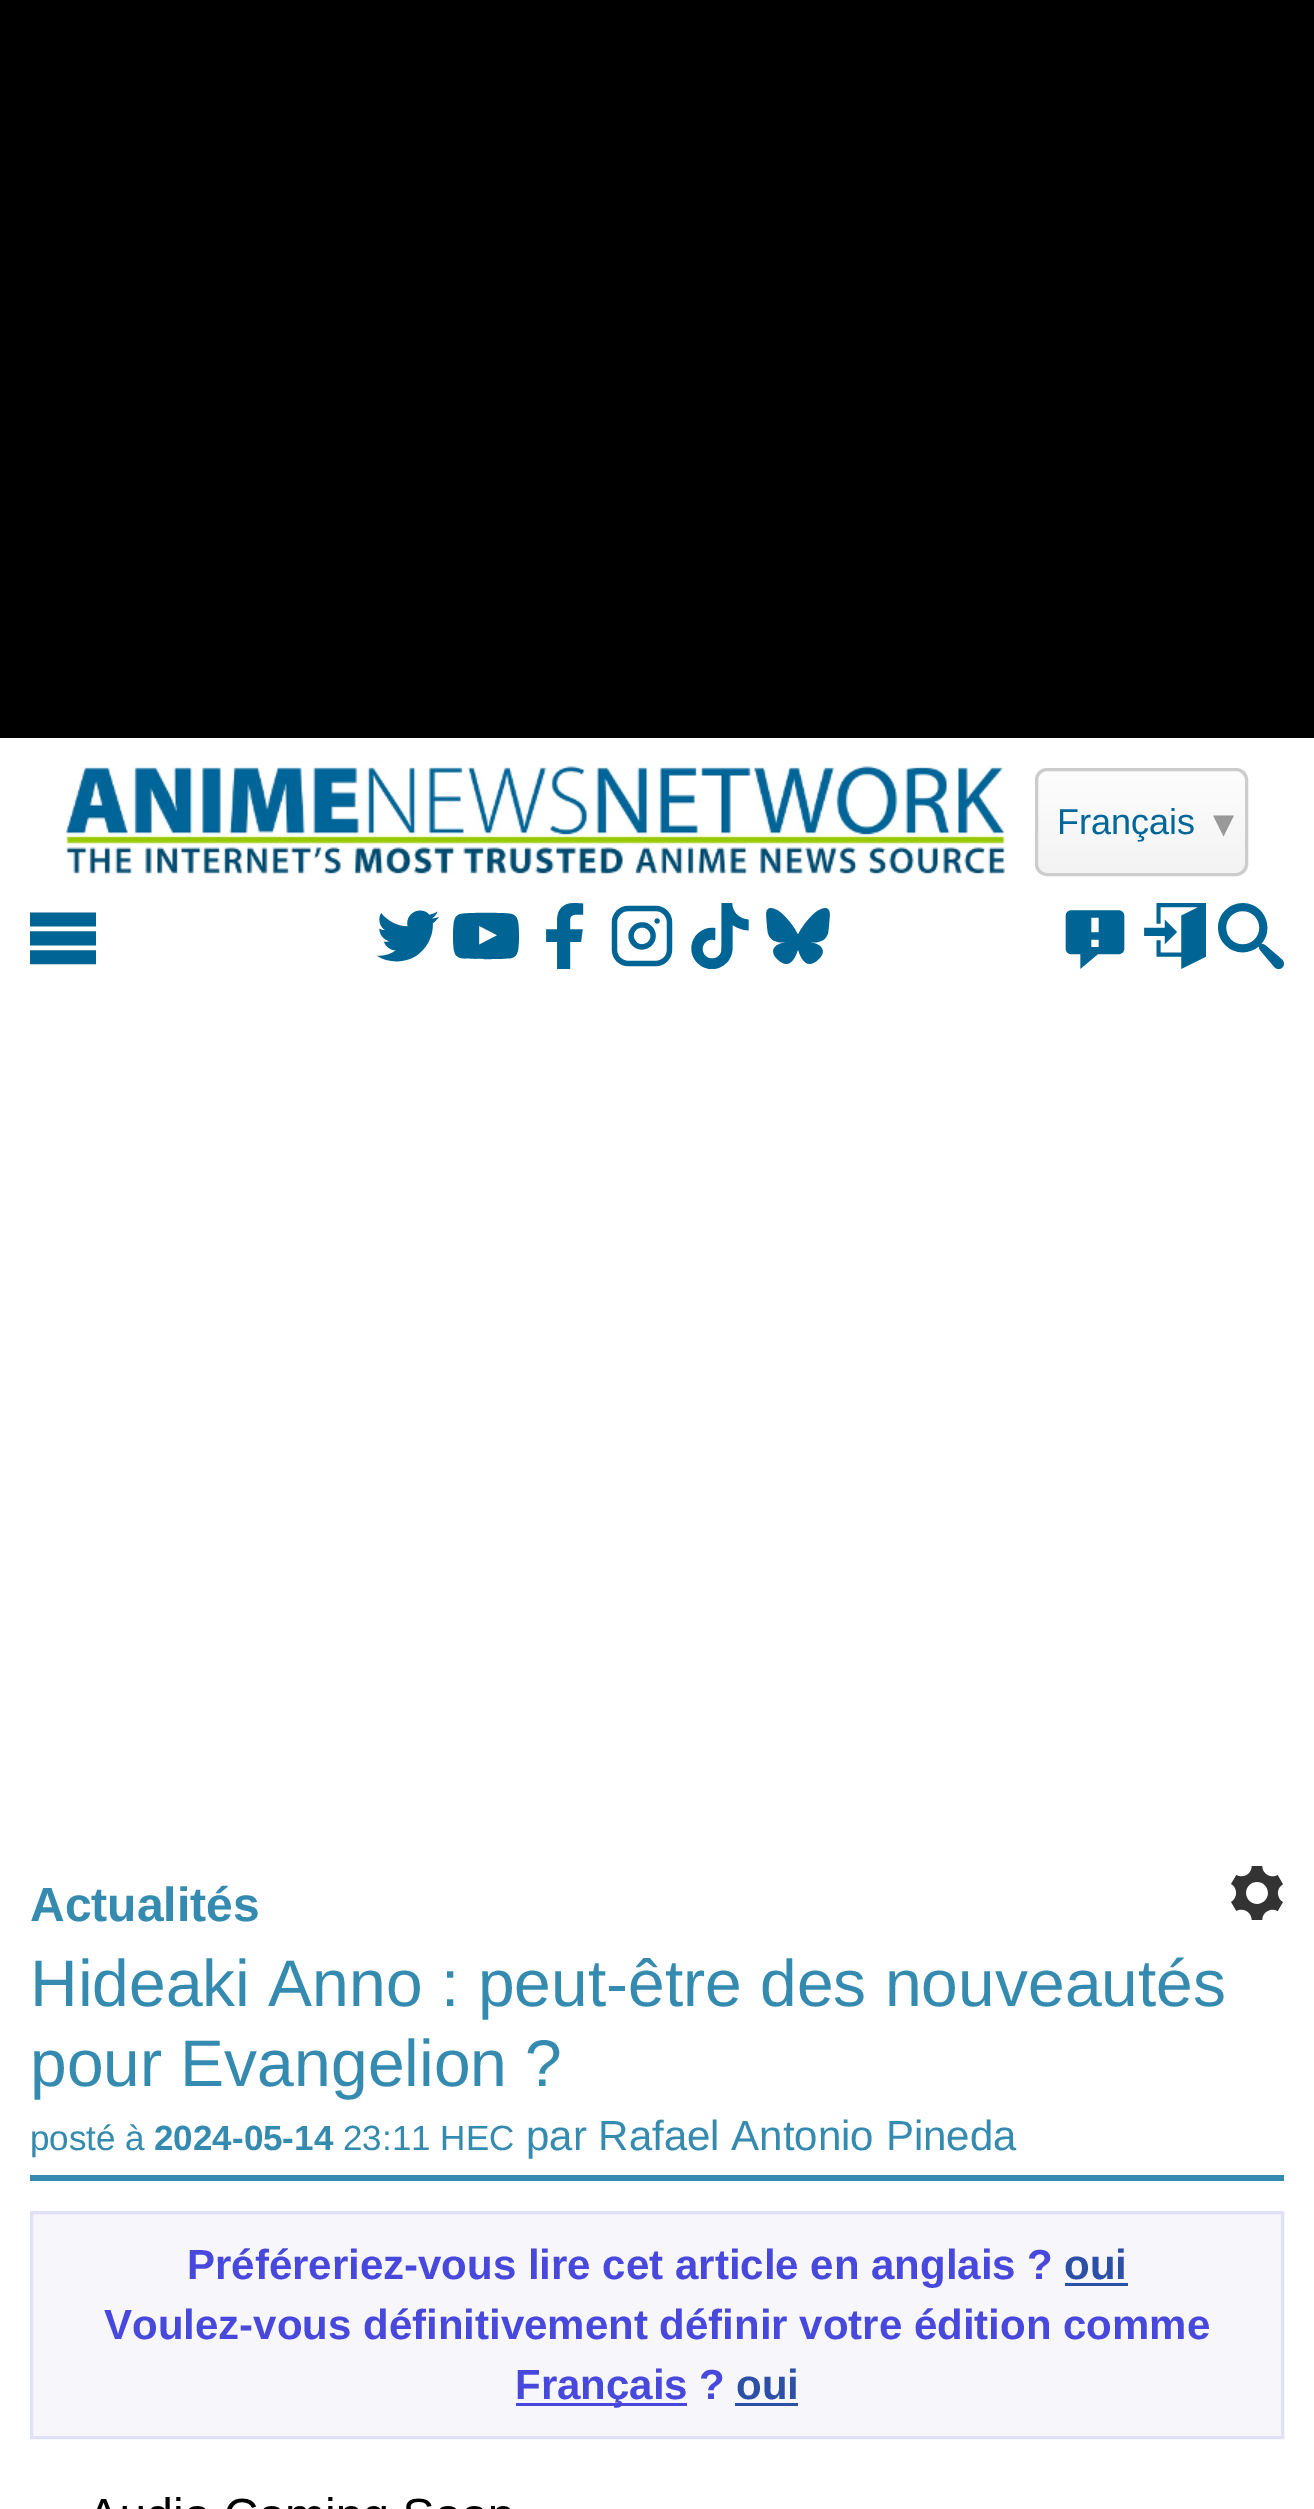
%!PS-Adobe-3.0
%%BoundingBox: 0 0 1314 2509
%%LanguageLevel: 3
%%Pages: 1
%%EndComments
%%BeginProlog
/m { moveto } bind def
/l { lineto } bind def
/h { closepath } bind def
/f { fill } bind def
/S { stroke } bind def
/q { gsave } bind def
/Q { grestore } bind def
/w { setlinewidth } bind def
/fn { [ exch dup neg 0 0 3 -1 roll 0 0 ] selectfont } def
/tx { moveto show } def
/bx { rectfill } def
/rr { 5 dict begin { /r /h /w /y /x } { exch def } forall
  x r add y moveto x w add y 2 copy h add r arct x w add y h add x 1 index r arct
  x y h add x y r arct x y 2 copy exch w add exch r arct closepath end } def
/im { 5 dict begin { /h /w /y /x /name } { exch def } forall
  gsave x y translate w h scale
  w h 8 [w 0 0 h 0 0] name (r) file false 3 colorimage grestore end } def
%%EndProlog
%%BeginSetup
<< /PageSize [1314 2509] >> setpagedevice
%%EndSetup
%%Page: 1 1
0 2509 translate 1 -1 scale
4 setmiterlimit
1 setgray
0 0 1314 2509 bx
0 setgray
0 0 1314 738 bx
(image0.raw) 66 766 939 108 im
q
1035 768 213 108 12 rr clip newpath
q 1035 771 m 1248 771 l 1248 873 l 1035 873 l h clip newpath
<< /ShadingType 2 /ColorSpace /DeviceRGB /Coords [1142 771 1142 873] /Extend [true true] /Function << /FunctionType 2 /Domain [0 1] /C0 [0.992 0.992 0.992] /C1 [0.953 0.953 0.953] /N 1 >> >> shfill Q
Q
0.8 setgray
3 w
1036.5 769.5 210 105 10.5 rr S
/LiberationSans-Regular 36 fn
0 0.4 0.6 setrgbcolor
(Français) 1057 834 tx
/DejaVuSans-Regular 42 fn
0.6 setgray
(▾) 1213 837 tx
(image1.raw) 30 912 66 53 im
(image2.raw) 377 910 63 52 im
(image3.raw) 453 912 66 48 im
(image4.raw) 546 903 38 66 im
(image5.raw) 611 905 62 62 im
(image6.raw) 691 903 58 66 im
(image7.raw) 766 908 64 56 im
(image8.raw) 1065 910 60 59 im
(image9.raw) 1144 903 62 66 im
(image10.raw) 1218 903 66 66 im
0.208 0.541 0.69 setrgbcolor
30 2175 1254 6 bx
/LiberationSans-Bold 48 fn
(Actualités) 30 1921 tx
/LiberationSans-Regular 66 fn
(Hideaki Anno : peut-être des nouveautés) 30 2006 tx
(pour Evangelion ?) 30 2086 tx
/LiberationSans-Regular 35 fn
(posté à) 30 2150 tx
/LiberationSans-Bold 35 fn
(2024-05-14) 154 2150 tx
/LiberationSans-Regular 35 fn
(23:11 HEC) 343 2150 tx
/LiberationSans-Regular 42 fn
(par Rafael Antonio Pineda) 526 2150 tx
0.965 0.965 0.984 setrgbcolor
31.5 2212.5 m 1282.5 2212.5 l 1282.5 2437.5 l 31.5 2437.5 l h q f Q
0.878 0.878 0.965 setrgbcolor
S
/LiberationSans-Bold 42 fn
0.282 0.282 0.867 setrgbcolor
(Préféreriez-vous lire cet article en anglais ?) 187 2279 tx
0.176 0.314 0.655 setrgbcolor
(oui) 1064 2279 tx
1065 2283 63 3 bx
0.282 0.282 0.867 setrgbcolor
(Voulez-vous définitivement définir votre édition comme) 104 2339 tx
516 2403 171 3 bx
(Français ?) 515 2399 tx
0.176 0.314 0.655 setrgbcolor
(oui) 736 2399 tx
735 2403 63 3 bx
(image11.raw) 97 2497 413 12 im
(image12.raw) 1231 1866 52 54 im
showpage
%%EOF
